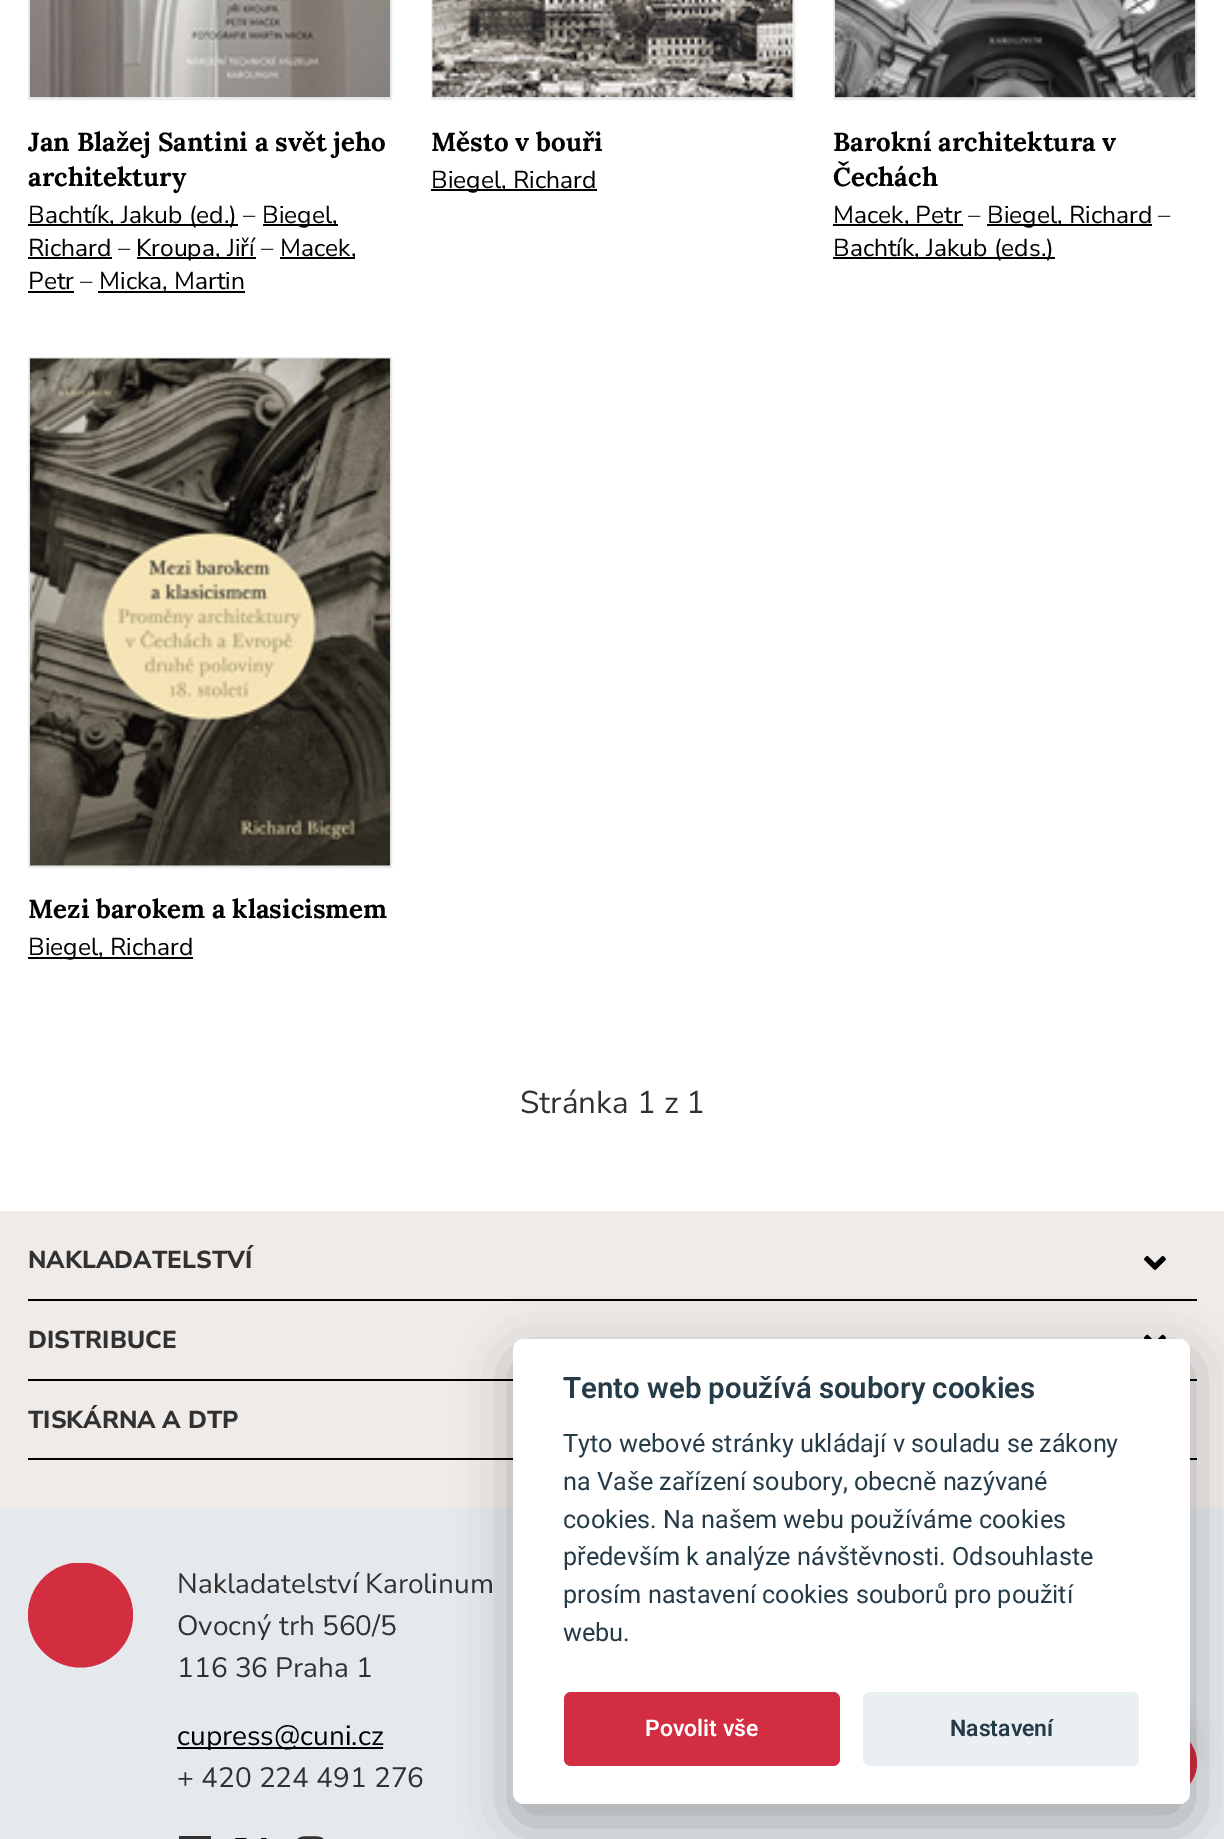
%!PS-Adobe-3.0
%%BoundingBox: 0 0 1224 1839
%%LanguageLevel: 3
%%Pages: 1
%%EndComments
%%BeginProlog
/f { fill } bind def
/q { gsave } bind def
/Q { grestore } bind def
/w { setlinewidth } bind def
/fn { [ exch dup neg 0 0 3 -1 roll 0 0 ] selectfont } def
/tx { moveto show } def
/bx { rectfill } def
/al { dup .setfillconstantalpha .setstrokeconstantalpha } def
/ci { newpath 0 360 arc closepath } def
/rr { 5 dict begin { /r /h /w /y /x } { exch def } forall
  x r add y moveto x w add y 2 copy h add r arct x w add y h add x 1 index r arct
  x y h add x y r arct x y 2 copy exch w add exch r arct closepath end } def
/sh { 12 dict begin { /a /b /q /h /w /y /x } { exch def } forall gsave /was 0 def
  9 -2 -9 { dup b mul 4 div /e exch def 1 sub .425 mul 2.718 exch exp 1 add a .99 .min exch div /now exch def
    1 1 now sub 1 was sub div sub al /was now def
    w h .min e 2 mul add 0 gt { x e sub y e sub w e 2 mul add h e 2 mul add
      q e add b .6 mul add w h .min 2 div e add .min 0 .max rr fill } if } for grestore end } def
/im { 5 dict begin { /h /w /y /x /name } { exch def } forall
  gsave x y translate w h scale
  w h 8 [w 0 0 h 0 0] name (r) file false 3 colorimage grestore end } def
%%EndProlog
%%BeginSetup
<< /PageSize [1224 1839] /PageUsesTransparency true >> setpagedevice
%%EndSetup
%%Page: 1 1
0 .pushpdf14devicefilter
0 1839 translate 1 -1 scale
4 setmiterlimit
1 setgray
0 0 1224 1839 bx
0.922 setgray
2 w
29 -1 362 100 rectstroke
(image0.raw) 29 0 362 98 im
/Lora-Bold 26 fn
0 setgray
(Jan Blažej Santini a svět jeho) 28 151 tx
(architektury) 28 186 tx
28 224 210 2 bx
/NunitoSans-Regular 24.5 fn
(Bachtík, Jakub \(ed.\)) 28 223 tx
0.192 setgray
(–) 243 223 tx
0 setgray
263 224 75 2 bx
(Biegel,) 262 223 tx
(Richard) 28 256 tx
28 257 84 2 bx
0.192 setgray
(–) 118 256 tx
0 setgray
137 257 119 2 bx
(Kroupa, Jiří) 136 256 tx
0.192 setgray
(–) 261 256 tx
0 setgray
280 257 75 2 bx
(Macek,) 280 256 tx
(Petr) 28 289 tx
28 291 46 2 bx
0.192 setgray
(–) 80 289 tx
0 setgray
98 291 147 2 bx
(Micka, Martin) 99 289 tx
0.922 setgray
432 -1 362 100 rectstroke
(image1.raw) 432 0 361 98 im
/Lora-Bold 26 fn
0 setgray
(Město v bouři) 431 151 tx
431 189 166 2 bx
/NunitoSans-Regular 24.5 fn
(Biegel, Richard) 431 188 tx
0.922 setgray
834 -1 362 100 rectstroke
(image2.raw) 834 0 362 98 im
/Lora-Bold 26 fn
0 setgray
(Barokní architektura v) 833 151 tx
(Čechách) 833 186 tx
833 224 130 2 bx
/NunitoSans-Regular 24.5 fn
(Macek, Petr) 833 223 tx
0.192 setgray
(–) 968 223 tx
0 setgray
987 224 165 2 bx
(Biegel, Richard) 987 223 tx
0.192 setgray
(–) 1158 223 tx
0 setgray
833 257 222 2 bx
(Bachtík, Jakub \(eds.\)) 833 256 tx
0.922 setgray
29 358 362 509 rectstroke
(image3.raw) 29 358 362 508 im
/Lora-Bold 26 fn
0 setgray
(Mezi barokem a klasicismem) 28 918 tx
28 957 165 2 bx
/NunitoSans-Regular 24.5 fn
(Biegel, Richard) 28 955 tx
/NunitoSans-Regular 31.5 fn
0.192 setgray
(Stránka 1 z 1) 520 1113 tx
0.937 0.922 0.91 setrgbcolor
0 1211 1224 296 bx
0 setgray
28 1299 1169 2 bx
/NunitoSans-ExtraBold 24.5 fn
0.192 setgray
(NAKLADATELSTVÍ) 28 1268 tx
(image4.raw) 1144 1256 22 14 im
0 setgray
28 1379 1169 2 bx
0.192 setgray
(DISTRIBUCE) 28 1348 tx
(image5.raw) 1144 1334 22 5 im
0 setgray
28 1458 1169 2 bx
0.192 setgray
(TISKÁRNA A DTP) 28 1428 tx
0.898 0.914 0.925 setrgbcolor
0 1507 1224 332 bx
q
28 1563 105 105 rectclip
0.827 0.18 0.247 setrgbcolor
80.5 1615 52.5 ci f
Q
/NunitoSans-Regular 28 fn
0.192 setgray
(Nakladatelství Karolinum) 177 1593 tx
(Ovocný trh 560/5) 177 1635 tx
(116 36 Praha 1) 177 1677 tx
0 setgray
177 1747 206 2 bx
(cupress@cuni.cz) 177 1745 tx
0.192 setgray
(+ 420 224 491 276) 177 1787 tx
179 1836 32 3 bx
(image6.raw) 235 1838 32 1 im
(image7.raw) 297 1836 27 3 im
0 setgray
1120 1712 68 68 34 13 0.2 sh
0.824 0.176 0.251 setrgbcolor
1163 1763 34 ci f
0.008 0.008 0.012 setrgbcolor
513 1356 677 466 11 26 0.28 sh
1 setgray
513 1339 677 465 11 rr f
/Roboto-SemiBold 29.4 fn
0.145 0.231 0.282 setrgbcolor
(Tento web používá soubory cookies) 563 1398 tx
/Roboto-Regular 25.2 fn
(Tyto webové stránky ukládají v souladu se zákony) 563 1452 tx
(na Vaše zařízení soubory, obecně nazývané) 563 1490 tx
(cookies. Na našem webu používáme cookies) 563 1528 tx
(především k analýze návštěvnosti. Odsouhlaste) 563 1565 tx
(prosím nastavení cookies souborů pro použití) 563 1603 tx
(webu.) 563 1641 tx
0.824 0.176 0.251 setrgbcolor
564 1692 276 74 7 rr f
/Roboto-SemiBold 23 fn
1 setgray
(Povolit vše) 645 1736 tx
0.918 0.937 0.949 setrgbcolor
863 1692 276 74 7 rr f
0.145 0.231 0.282 setrgbcolor
(Nastavení) 950 1736 tx
.poppdf14devicefilter showpage
%%EOF
